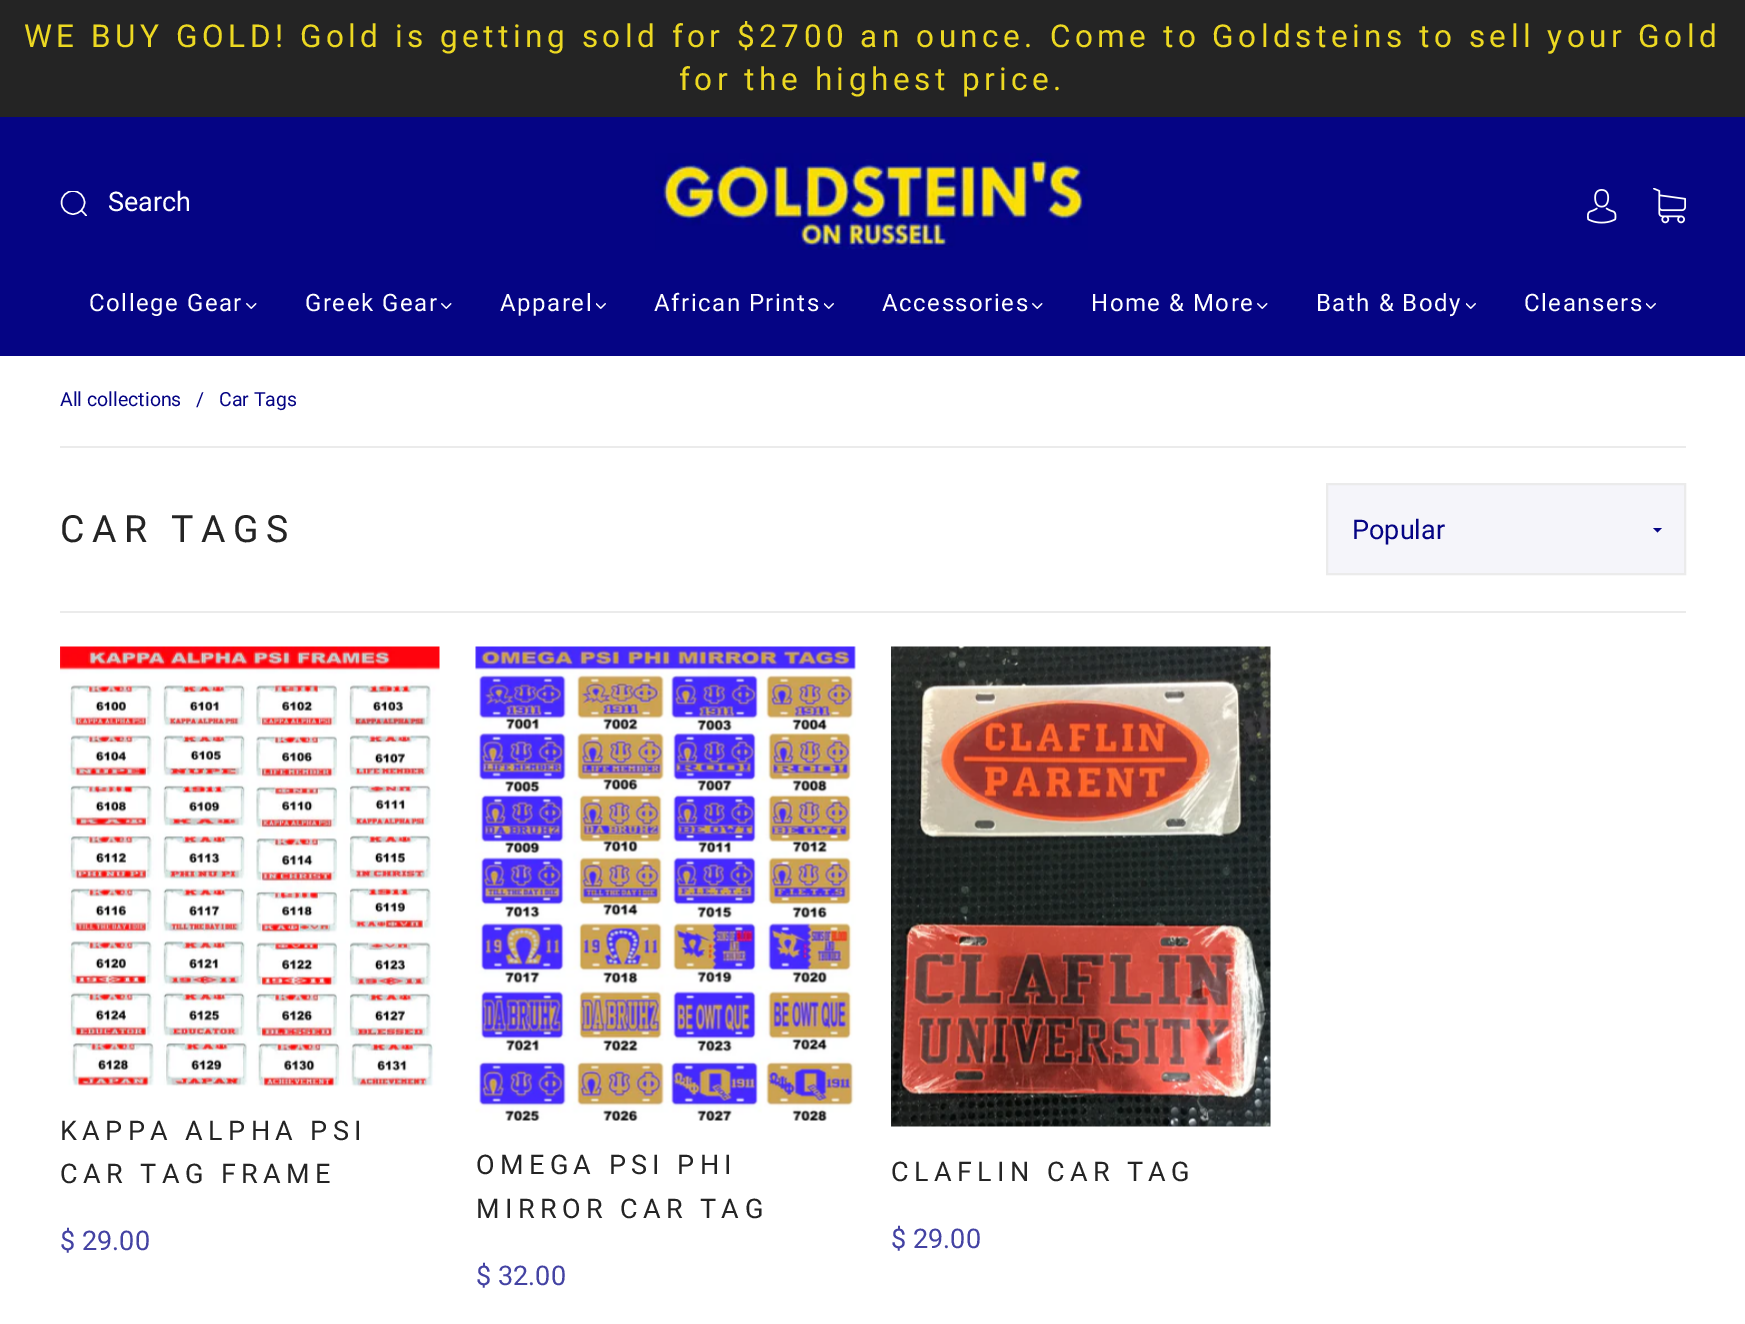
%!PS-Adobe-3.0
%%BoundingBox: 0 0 1745 1324
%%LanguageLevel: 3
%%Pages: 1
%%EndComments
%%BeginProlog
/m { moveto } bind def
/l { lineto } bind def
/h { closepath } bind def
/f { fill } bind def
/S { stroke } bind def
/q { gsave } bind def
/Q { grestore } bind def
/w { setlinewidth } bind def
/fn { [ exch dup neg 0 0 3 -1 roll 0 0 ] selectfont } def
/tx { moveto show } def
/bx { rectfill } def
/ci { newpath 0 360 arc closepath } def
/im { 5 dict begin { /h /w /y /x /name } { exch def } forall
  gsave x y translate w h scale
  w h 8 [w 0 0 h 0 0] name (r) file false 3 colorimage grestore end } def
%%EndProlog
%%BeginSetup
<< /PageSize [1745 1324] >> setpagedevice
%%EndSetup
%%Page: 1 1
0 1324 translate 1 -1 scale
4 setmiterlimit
1 setgray
0 0 1745 1324 bx
0.141 setgray
0 0 1745 117 bx
/Roboto-Regular 31.5 fn
0.925 0.847 0.133 setrgbcolor
24 47 m 4.5 0 (WE BUY GOLD! Gold is getting sold for $2700 an ounce. Come to Goldsteins to sell your Gold) ashow
679 90 m 4.5 0 (for the highest price.) ashow
0.02 0.016 0.518 setrgbcolor
0 117 1745 239 bx
q
60 191 27 25 rectclip
1 setgray
1.4 w
73 202.5 11.5 ci S
81 210 m 89 218.5 l S
Q
/Roboto-Regular 27 fn
1 setgray
(Search) 108 211 tx
(image0.raw) 655 153 433 97 im
(image1.raw) 1587 189 30 35 im
(image2.raw) 1653 188 33 36 im
/Roboto-Regular 24 fn
89 311 m 1.5 0 (College Gear) ashow
(image3.raw) 246 303 11 6 im
305 311 m 1.5 0 (Greek Gear) ashow
(image3.raw) 441 303 11 6 im
500 311 m 1.5 0 (Apparel) ashow
(image4.raw) 596 303 10 6 im
654 311 m 1.5 0 (African Prints) ashow
(image4.raw) 824 303 10 6 im
882 311 m 1.5 0 (Accessories) ashow
(image3.raw) 1032 303 11 6 im
1091 311 m 1.5 0 (Home & More) ashow
(image3.raw) 1257 303 11 6 im
1316 311 m 1.5 0 (Bath & Body) ashow
(image4.raw) 1466 303 10 6 im
1524 311 m 1.5 0 (Cleansers) ashow
(image4.raw) 1646 303 10 6 im
0.922 setgray
60 446 1626 2 bx
/Roboto-Regular 19.5 fn
0.02 0.016 0.518 setrgbcolor
(All collections) 60 406 tx
(/) 196 406 tx
(Car Tags) 219 406 tx
0.922 setgray
60 611 1626 2 bx
/Roboto-Regular 37.5 fn
0.141 setgray
60 542 m 7.5 0 (CAR TAGS) ashow
0.961 0.961 0.98 setrgbcolor
1327 484 m 1685 484 l 1685 574 l 1327 574 l h q f Q
0.922 setgray
2 w
S
/Roboto-Regular 27 fn
0.02 0.016 0.518 setrgbcolor
(Popular) 1352 539 tx
1653 528 m 1662 528 l 1657.5 532.5 l h f
(image5.raw) 60 646 380 441 im
0.141 setgray
60 1140 m 5.4 0 (KAPPA ALPHA PSI) ashow
60 1183 m 5.4 0 (CAR TAG FRAME) ashow
0.267 0.263 0.639 setrgbcolor
($ 29.00) 60 1250 tx
(image6.raw) 475 646 381 475 im
0.141 setgray
476 1174 m 5.4 0 (OMEGA PSI PHI) ashow
476 1218 m 5.4 0 (MIRROR CAR TAG) ashow
0.267 0.263 0.639 setrgbcolor
($ 32.00) 476 1285 tx
(image7.raw) 891 646 380 481 im
0.141 setgray
891 1181 m 5.4 0 (CLAFLIN CAR TAG) ashow
0.267 0.263 0.639 setrgbcolor
($ 29.00) 891 1248 tx
showpage
%%EOF
